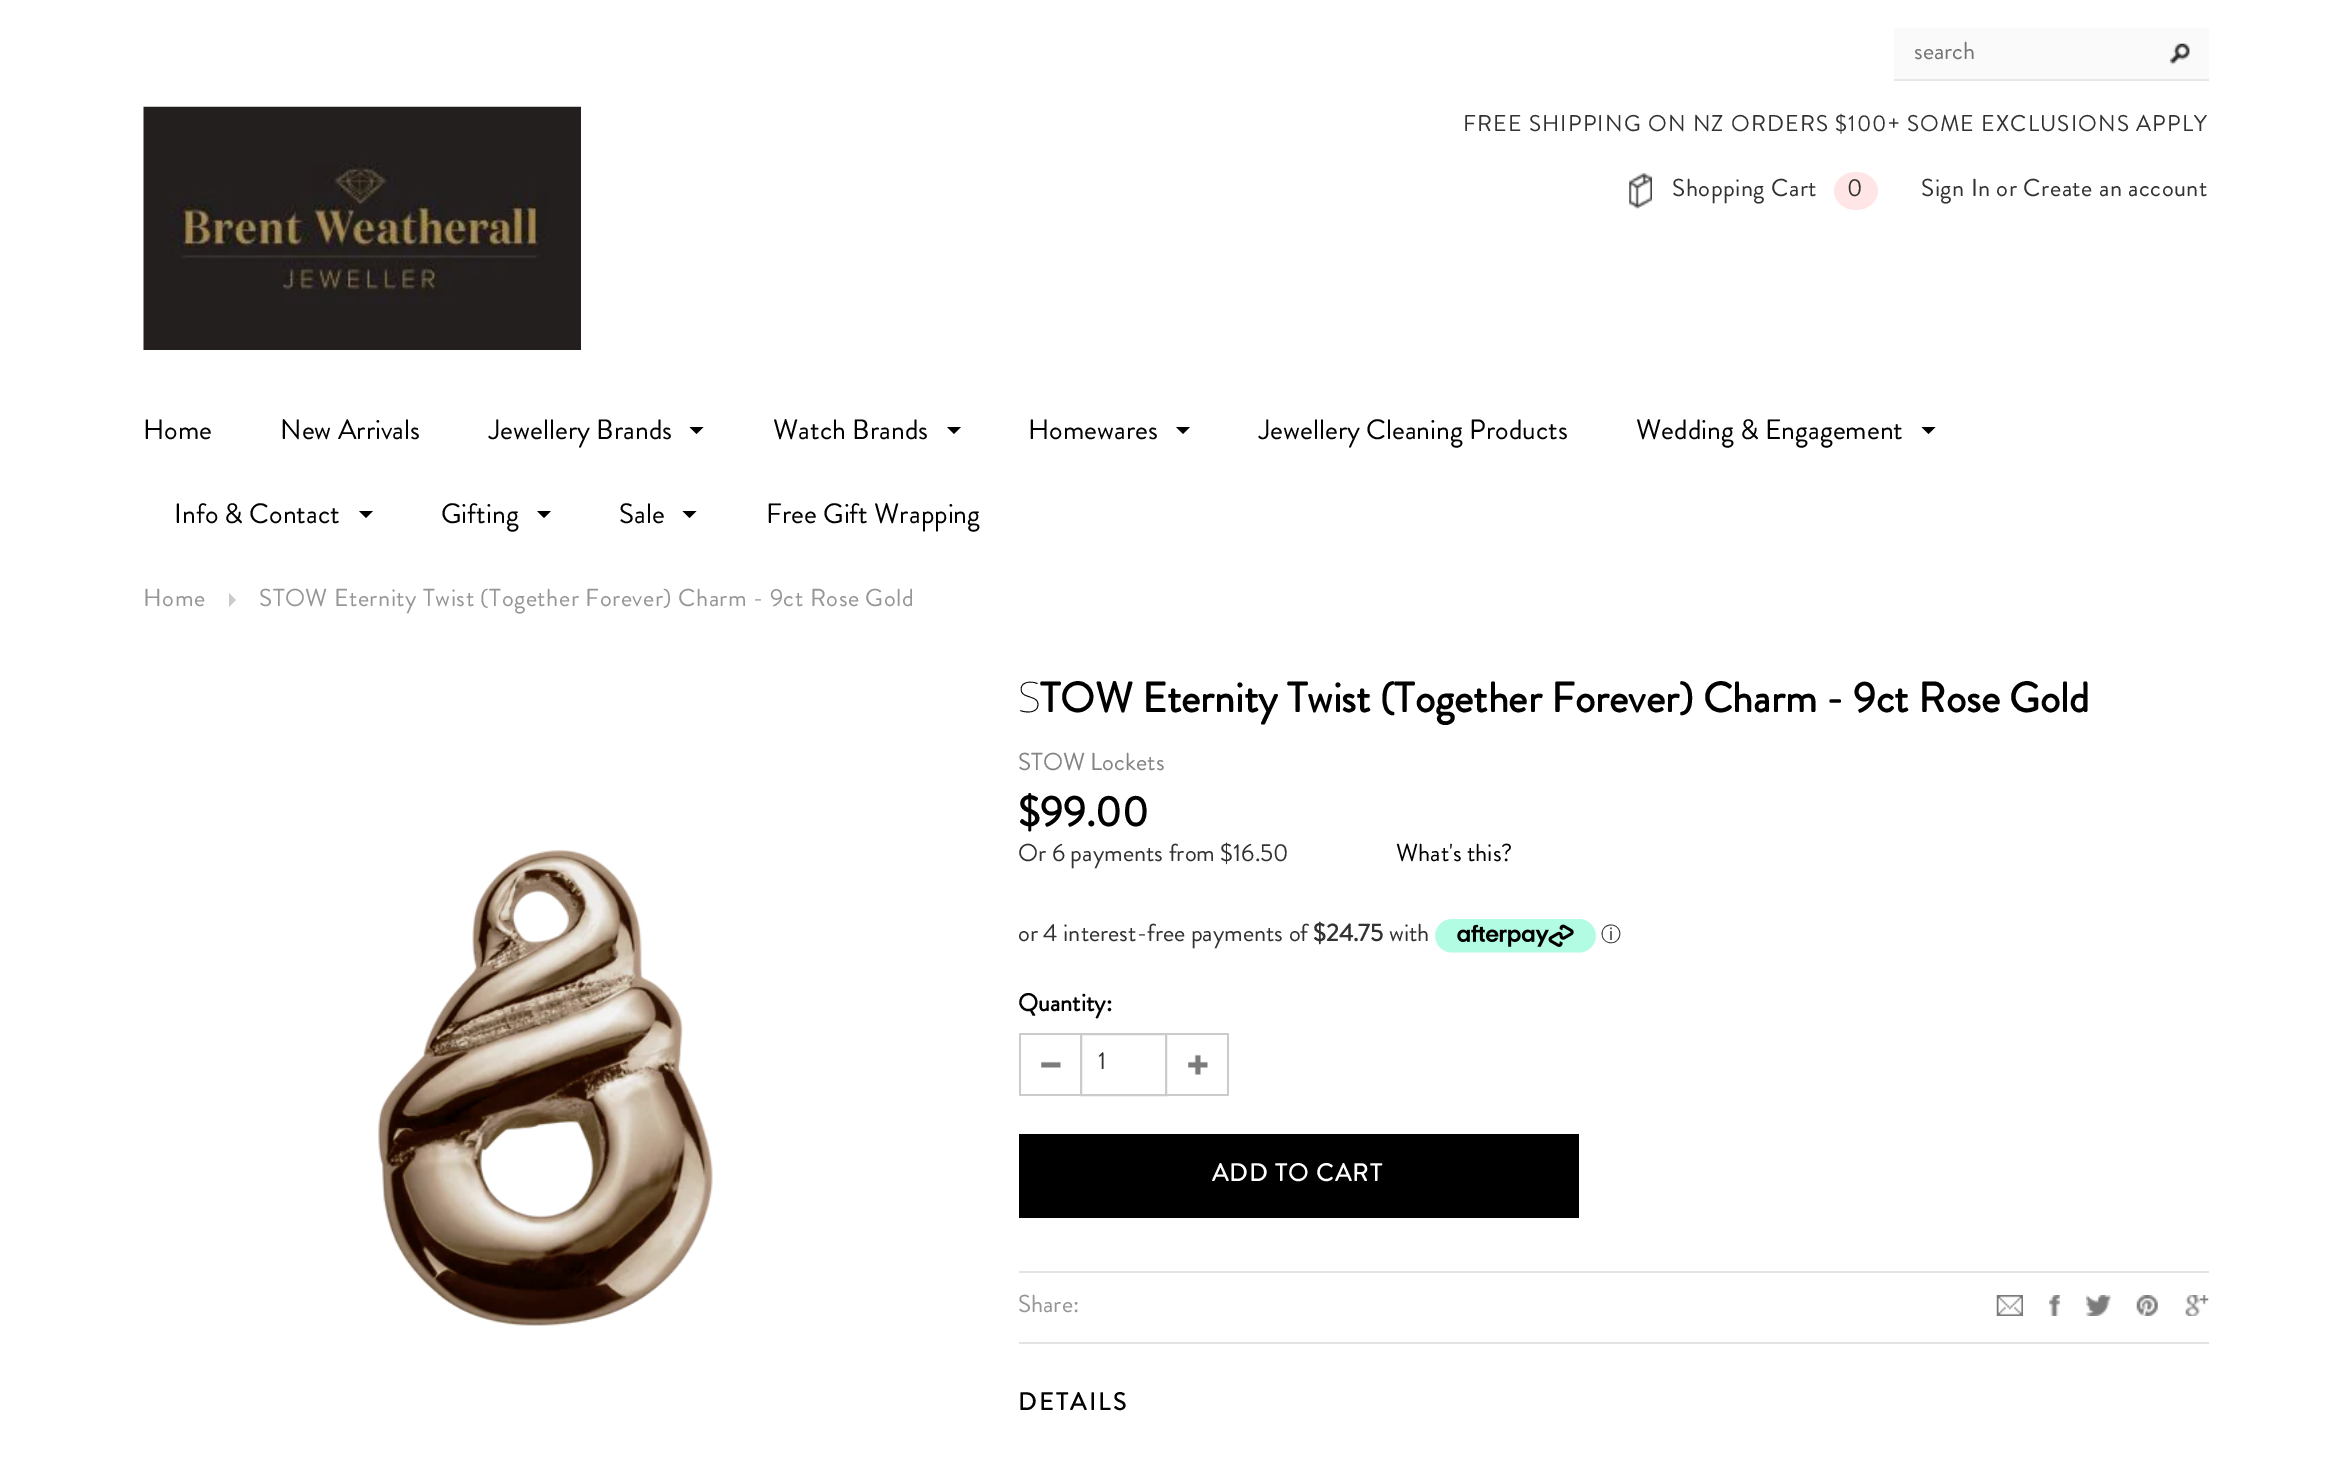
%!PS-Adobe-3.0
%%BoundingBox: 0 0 2350 1480
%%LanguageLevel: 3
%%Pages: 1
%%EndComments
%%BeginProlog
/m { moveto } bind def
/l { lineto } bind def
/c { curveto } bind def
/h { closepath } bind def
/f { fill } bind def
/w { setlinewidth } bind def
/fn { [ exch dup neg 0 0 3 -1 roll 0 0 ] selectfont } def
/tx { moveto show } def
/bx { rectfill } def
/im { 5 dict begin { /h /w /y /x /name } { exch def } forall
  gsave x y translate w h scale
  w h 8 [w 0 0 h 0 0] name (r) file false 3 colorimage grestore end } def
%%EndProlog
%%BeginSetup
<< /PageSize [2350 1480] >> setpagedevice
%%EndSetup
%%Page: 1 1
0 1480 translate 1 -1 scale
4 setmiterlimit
1 setgray
0 0 2350 1480 bx
0.98 setgray
1894 28 315 51 bx
0.906 setgray
1894 79 315 2 bx
/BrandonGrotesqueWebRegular-Regular 24.5 fn
0.459 setgray
(search) 1914 59 tx
(image0.raw) 2170 43 20 22 im
(image1.raw) 143 106 438 244 im
/BrandonGrotesqueWebRegular-Regular 22.75 fn
0.196 setgray
1463 131 m 1.15 0 (FREE SHIPPING ON NZ ORDERS $100+ SOME EXCLUSIONS APPLY) ashow
(image2.raw) 1629 173 23 36 im
/BrandonGrotesqueWebRegular-Regular 24.5 fn
1672 196 m 0.5 0 (Shopping Cart) ashow
1 0.898 0.898 setrgbcolor
1856 172 m 1868 172 1878 180.5 1878 191 c 1878 201.5 1868 210 1856 210 c 1844 210 1834 201.5 1834 191 c 1834 180.5 1844 172 1856 172 c h f
0.196 setgray
1847 196 m 0.5 0 (0) ashow
1921 196 m 0.5 0 (Sign In or Create an account) ashow
/BrandonGrotesqueWebRegular-Regular 28 fn
0 setgray
(Home) 143 439 tx
(New Arrivals) 280 439 tx
(Jewellery Brands) 489 439 tx
689.5 427 m 703.5 427 l 696.5 434 l h f
(Watch Brands) 773 439 tx
947 427 m 961 427 l 954 434 l h f
(Homewares) 1028 439 tx
1176 427 m 1190 427 l 1183 434 l h f
(Jewellery Cleaning Products) 1259 439 tx
(Wedding & Engagement) 1636 439 tx
1921.5 427 m 1935.5 427 l 1928.5 434 l h f
(Info & Contact) 174 523 tx
359 511 m 373 511 l 366 518 l h f
(Gifting) 441 523 tx
537 511 m 551 511 l 544 518 l h f
(Sale) 619 523 tx
682.5 511 m 696.5 511 l 689.5 518 l h f
(Free Gift Wrapping) 766 523 tx
/BrandonGrotesqueWebRegular-Regular 24.5 fn
0.588 setgray
143 606 m 0.5 0 (Home) ashow
0.796 setgray
229 607 m 229 593 l 236 600 l h f
0.588 setgray
259 606 m 0.5 0 (STOW Eternity Twist \(Together Forever\) Charm - 9ct Rose Gold) ashow
(image3.raw) 378 850 335 476 im
/NotoSans-Thin 42 fn
0 setgray
(S) 1018 712 tx
/BrandonGrotesqueWebRegular-Bold 42 fn
(TOW Eternity Twist \(Together Forever\) Charm - 9ct Rose Gold) 1040 712 tx
/BrandonGrotesqueWebRegular-Regular 24.5 fn
0.518 setgray
(STOW Lockets) 1018 770 tx
/BrandonGrotesqueWebRegular-Bold 42 fn
0 setgray
($99.00) 1018 826 tx
/BrandonGrotesqueWebRegular-Regular 24.5 fn
0.196 setgray
(Or 6 payments from $16.50) 1018 861 tx
0 setgray
(What's this?) 1396 861 tx
0.196 setgray
(or 4 interest-free payments of) 1018 941 tx
/BrandonGrotesqueWebRegular-Bold 24.5 fn
($24.75) 1313 941 tx
/BrandonGrotesqueWebRegular-Regular 24.5 fn
(with) 1389 941 tx
(image4.raw) 1435 919 161 34 im
/WenQuanYiZenHei-Medium 20 fn
(ⓘ) 1601 941 tx
/BrandonGrotesqueWebRegular-Bold 24.5 fn
0 setgray
(Quantity:) 1018 1011 tx
(image5.raw) 1041 1061 20 7 im
0.796 setgray
1019 1033 61 2 bx
1019 1094 61 2 bx
1019 1033 2 63 bx
2 w
1081 1034 85 61 rectstroke
/BrandonGrotesqueWebRegular-Regular 24.5 fn
0.196 setgray
(1) 1098 1069 tx
(image6.raw) 1188 1054 20 21 im
0.796 setgray
1167 1033 62 2 bx
1227 1033 2 63 bx
1167 1094 62 2 bx
0 setgray
1019 1134 560 84 bx
/BrandonGrotesqueWebRegular-Bold 24.5 fn
1 setgray
1212 1181 m 1.25 0 (ADD TO CART) ashow
0.89 setgray
1019 1271 1190 2 bx
1019 1342 1190 2 bx
/BrandonGrotesqueWebRegular-Regular 24.5 fn
0.588 setgray
(Share:) 1018 1312 tx
(image7.raw) 1996 1295 27 21 im
(image8.raw) 2049 1295 11 21 im
(image9.raw) 2086 1295 25 21 im
(image10.raw) 2136 1295 22 21 im
(image11.raw) 2185 1295 24 21 im
/BrandonGrotesqueWebRegular-Bold 24.5 fn
0 setgray
1018 1410 m 2.5 0 (DETAILS) ashow
showpage
%%EOF
